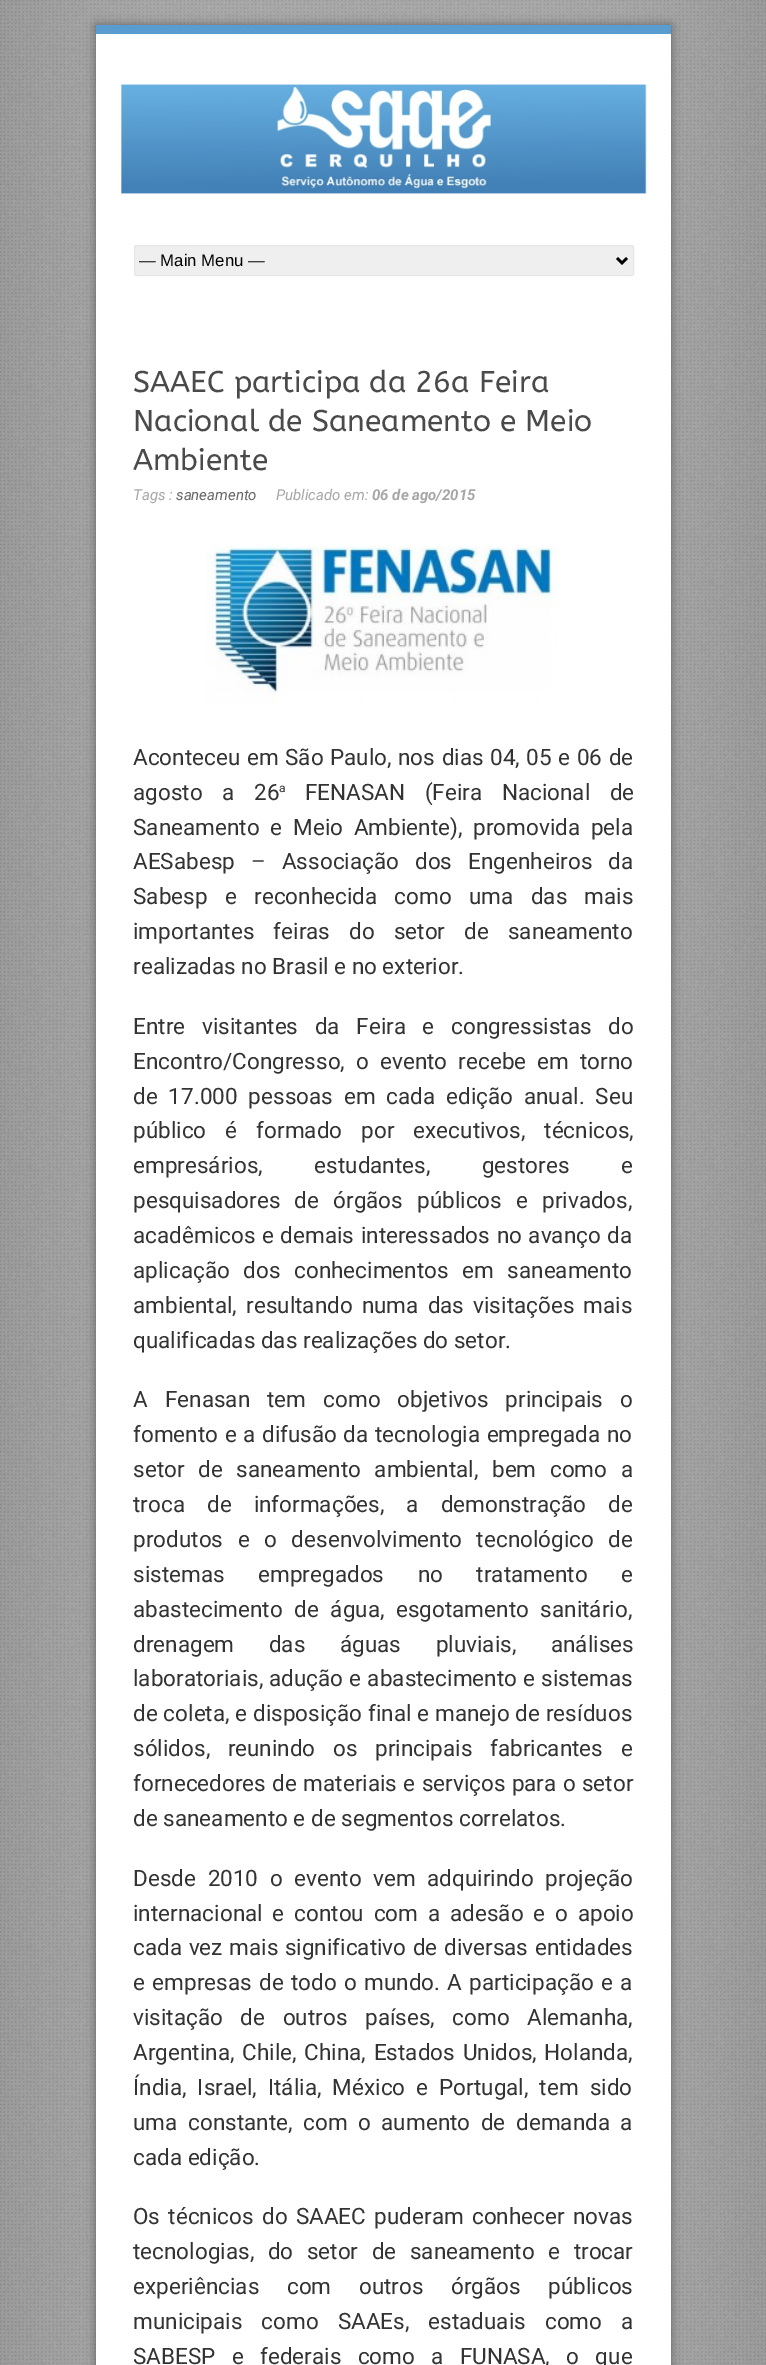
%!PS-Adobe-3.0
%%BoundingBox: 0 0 766 2365
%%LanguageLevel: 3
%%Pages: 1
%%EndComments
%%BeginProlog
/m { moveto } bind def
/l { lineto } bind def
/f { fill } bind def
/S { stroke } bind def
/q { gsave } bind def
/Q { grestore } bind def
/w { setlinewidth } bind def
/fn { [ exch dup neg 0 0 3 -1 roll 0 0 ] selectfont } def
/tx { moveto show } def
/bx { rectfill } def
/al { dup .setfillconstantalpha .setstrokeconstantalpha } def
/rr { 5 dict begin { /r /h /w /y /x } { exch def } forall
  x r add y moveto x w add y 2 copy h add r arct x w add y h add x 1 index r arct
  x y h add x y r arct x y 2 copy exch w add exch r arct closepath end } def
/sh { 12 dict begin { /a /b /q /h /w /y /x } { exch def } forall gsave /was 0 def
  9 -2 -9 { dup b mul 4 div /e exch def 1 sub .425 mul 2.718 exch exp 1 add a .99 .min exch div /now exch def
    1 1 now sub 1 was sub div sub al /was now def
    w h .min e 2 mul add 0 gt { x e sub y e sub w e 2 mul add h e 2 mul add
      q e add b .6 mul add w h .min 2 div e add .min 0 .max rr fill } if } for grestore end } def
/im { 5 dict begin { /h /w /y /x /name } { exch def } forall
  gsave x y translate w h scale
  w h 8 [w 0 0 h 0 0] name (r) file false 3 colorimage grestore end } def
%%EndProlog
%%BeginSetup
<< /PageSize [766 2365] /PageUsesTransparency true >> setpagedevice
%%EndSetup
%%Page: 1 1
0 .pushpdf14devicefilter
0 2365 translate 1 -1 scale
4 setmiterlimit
1 setgray
0 0 766 2365 bx
(image0.raw) 0 0 766 2365 im
(image1.raw) 0 0 766 2365 im
0 setgray
96 25 575 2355 0 5 0.4 sh
0.349 0.612 0.816 setrgbcolor
96 25 575 9 bx
1 setgray
96 34 575 2331 bx
(image2.raw) 121 84 526 110 im
0.937 setgray
134.5 245.5 499 30 2 rr q f Q
0.902 setgray
S
0 setgray
2.5 w
617 258 m 622 263 l 627 258 l S
/LiberationSans-Regular 16.75 fn
(— Main Menu —) 139 266 tx
/ABeeZee-Regular 30 fn
0.29 setgray
(SAAEC participa da 26a Feira) 133 392 tx
(Nacional de Saneamento e Meio) 133 431 tx
(Ambiente) 133 470 tx
/Roboto-Italic 15 fn
0.651 setgray
(Tags :) 133 500 tx
0.4 setgray
(saneamento) 176 500 tx
0.651 setgray
(Publicado em:) 276 500 tx
/Roboto-BoldItalic 15 fn
(06 de ago/2015) 372 500 tx
(image3.raw) 206 545 351 160 im
/Roboto-Regular 22.5 fn
0.2 setgray
133 765 m 1 0 32 (Aconteceu em São Paulo, nos dias 04, 05 e 06 de) widthshow
133 800 m 14 0 32 (agosto a 26) widthshow
/Roboto-Regular 12 fn
(a) 279 792 tx
/Roboto-Regular 22.5 fn
305 800 m 14 0 32 (FENASAN \(Feira Nacional de) widthshow
133 835 m 5.25 0 32 (Saneamento e Meio Ambiente\), promovida pela) widthshow
133 869 m 10.5 0 32 (AESabesp – Associação dos Engenheiros da) widthshow
133 904 m 11.75 0 32 (Sabesp e reconhecida como uma das mais) widthshow
133 939 m 13.5 0 32 (importantes feiras do setor de saneamento) widthshow
(realizadas no Brasil e no exterior.) 133 974 tx
133 1034 m 11 0 32 (Entre visitantes da Feira e congressistas do) widthshow
133 1069 m 5.5 0 32 (Encontro/Congresso, o evento recebe em torno) widthshow
133 1104 m 5.25 0 32 (de 17.000 pessoas em cada edição anual. Seu) widthshow
133 1138 m 13.5 0 32 (público é formado por executivos, técnicos,) widthshow
133 1173 m 46 0 32 (empresários, estudantes, gestores e) widthshow
133 1208 m 8.5 0 32 (pesquisadores de órgãos públicos e privados,) widthshow
133 1243 m 1 0 32 (acadêmicos e demais interessados no avanço da) widthshow
133 1278 m 8 0 32 (aplicação dos conhecimentos em saneamento) widthshow
133 1313 m 3.5 0 32 (ambiental, resultando numa das visitações mais) widthshow
(qualificadas das realizações do setor.) 133 1348 tx
133 1407 m 11.5 0 32 (A Fenasan tem como objetivos principais o) widthshow
133 1442 m 1 0 32 (fomento e a difusão da tecnologia empregada no) widthshow
133 1477 m 8 0 32 (setor de saneamento ambiental, bem como a) widthshow
133 1512 m 16.5 0 32 (troca de informações, a demonstração de) widthshow
133 1547 m 9 0 32 (produtos e o desenvolvimento tecnológico de) widthshow
133 1582 m 28 0 32 (sistemas empregados no tratamento e) widthshow
133 1617 m 6 0 32 (abastecimento de água, esgotamento sanitário,) widthshow
133 1652 m 29 0 32 (drenagem das águas pluviais, análises) widthshow
133 1686 m 0.5 0 32 (laboratoriais, adução e abastecimento e sistemas) widthshow
133 1721 m 0.25 0 32 (de coleta, e disposição final e manejo de resíduos) widthshow
133 1756 m 12 0 32 (sólidos, reunindo os principais fabricantes e) widthshow
133 1791 m 0.75 0 32 (fornecedores de materiais e serviços para o setor) widthshow
(de saneamento e de segmentos correlatos.) 133 1826 tx
133 1886 m 6 0 32 (Desde 2010 o evento vem adquirindo projeção) widthshow
133 1921 m 4.25 0 32 (internacional e contou com a adesão e o apoio) widthshow
133 1955 m 1 0 32 (cada vez mais significativo de diversas entidades) widthshow
133 1990 m 1.75 0 32 (e empresas de todo o mundo. A participação e a) widthshow
133 2025 m 12 0 32 (visitação de outros países, como Alemanha,) widthshow
133 2060 m 2.25 0 32 (Argentina, Chile, China, Estados Unidos, Holanda,) widthshow
133 2095 m 5.5 0 32 (Índia, Israel, Itália, México e Portugal, tem sido) widthshow
133 2130 m 5 0 32 (uma constante, com o aumento de demanda a) widthshow
(cada edição.) 133 2165 tx
133 2224 m 2.75 0 32 (Os técnicos do SAAEC puderam conhecer novas) widthshow
133 2259 m 8 0 32 (tecnologias, do setor de saneamento e trocar) widthshow
133 2294 m 22 0 32 (experiências com outros órgãos públicos) widthshow
133 2329 m 13.5 0 32 (municipais como SAAEs, estaduais como a) widthshow
133 2364 m 10.75 0 32 (SABESP e federais como a FUNASA, o que) widthshow
.poppdf14devicefilter showpage
%%EOF
